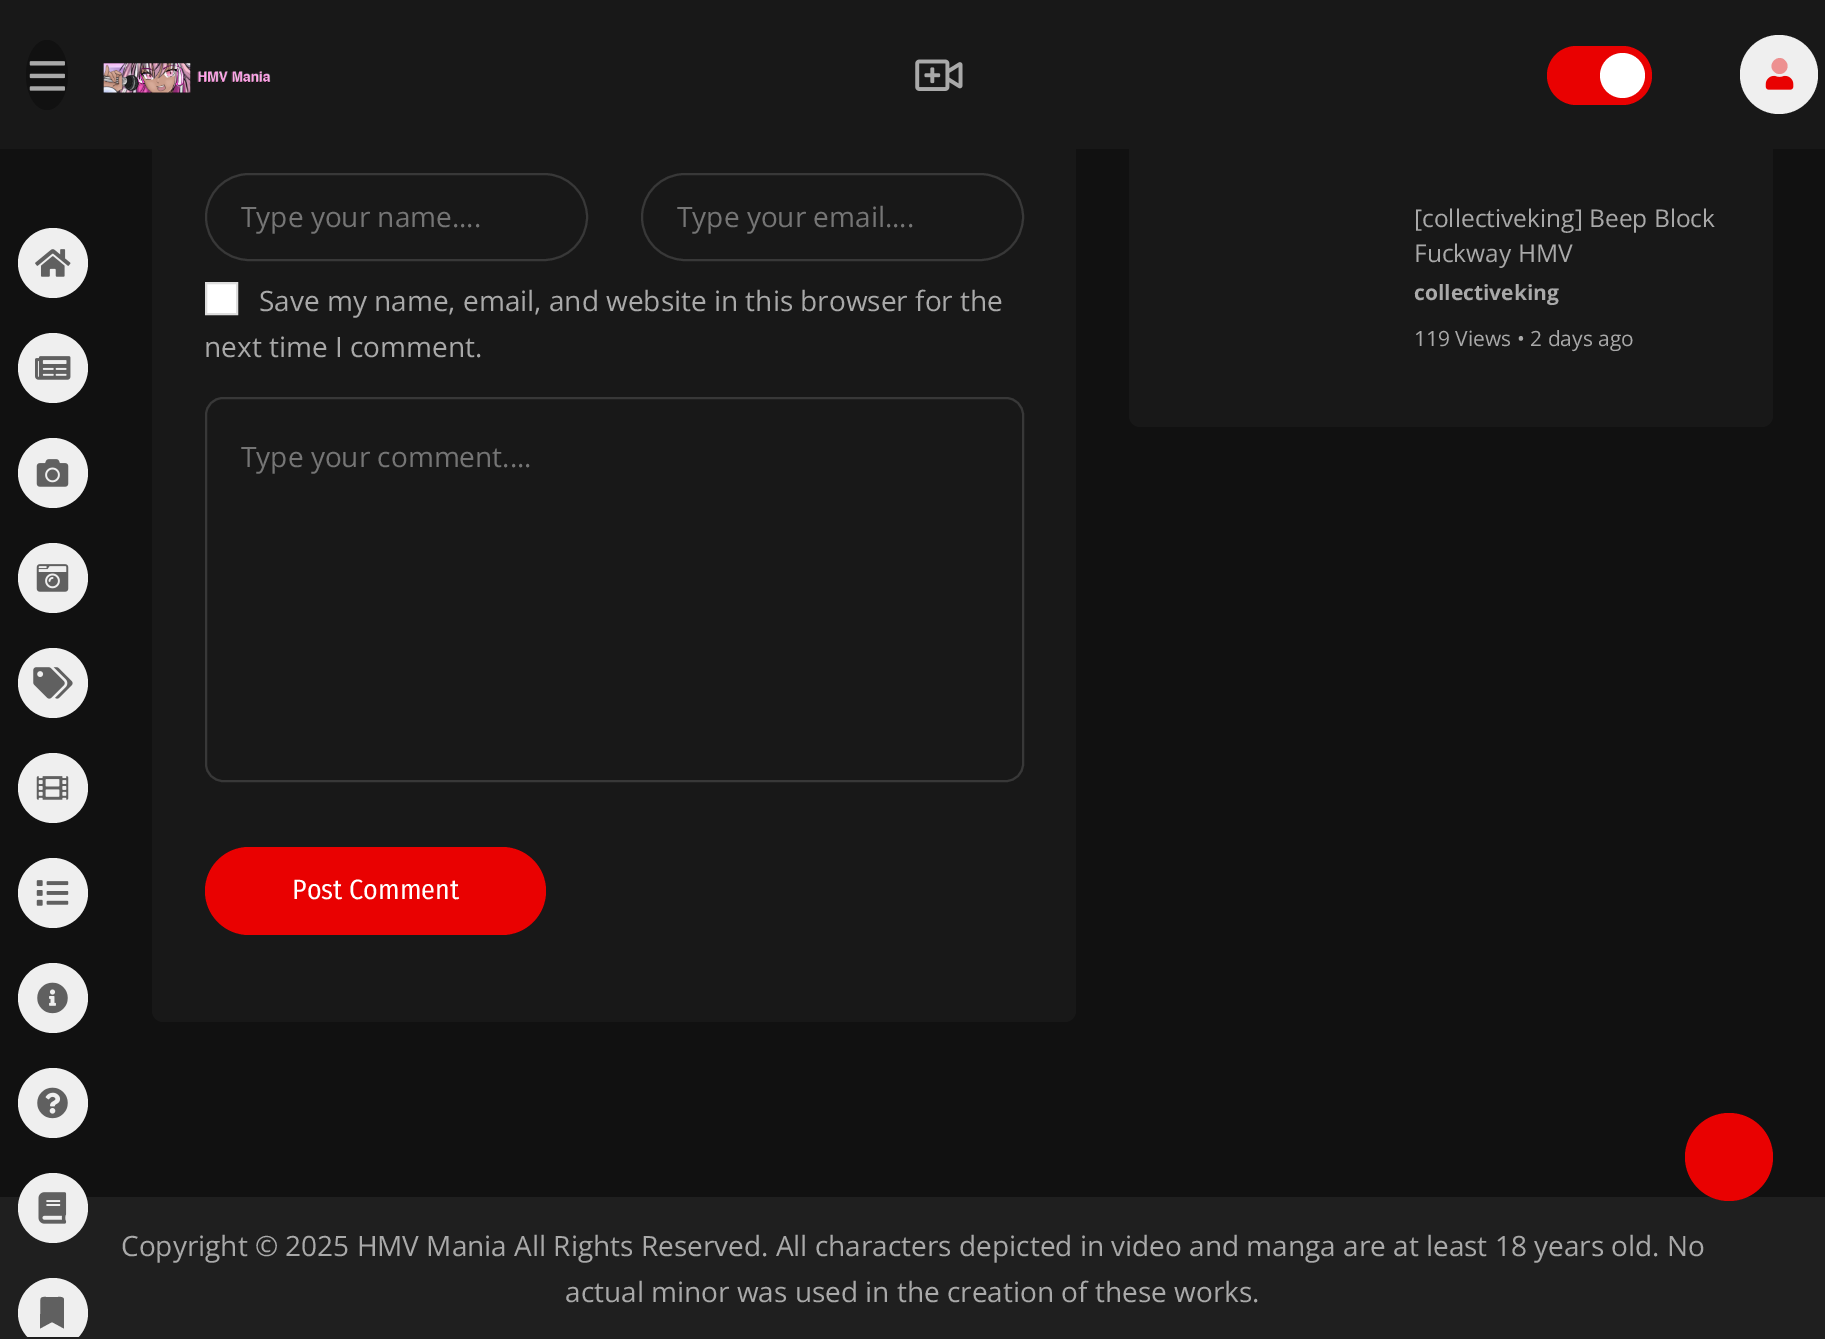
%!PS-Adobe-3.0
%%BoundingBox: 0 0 1825 1339
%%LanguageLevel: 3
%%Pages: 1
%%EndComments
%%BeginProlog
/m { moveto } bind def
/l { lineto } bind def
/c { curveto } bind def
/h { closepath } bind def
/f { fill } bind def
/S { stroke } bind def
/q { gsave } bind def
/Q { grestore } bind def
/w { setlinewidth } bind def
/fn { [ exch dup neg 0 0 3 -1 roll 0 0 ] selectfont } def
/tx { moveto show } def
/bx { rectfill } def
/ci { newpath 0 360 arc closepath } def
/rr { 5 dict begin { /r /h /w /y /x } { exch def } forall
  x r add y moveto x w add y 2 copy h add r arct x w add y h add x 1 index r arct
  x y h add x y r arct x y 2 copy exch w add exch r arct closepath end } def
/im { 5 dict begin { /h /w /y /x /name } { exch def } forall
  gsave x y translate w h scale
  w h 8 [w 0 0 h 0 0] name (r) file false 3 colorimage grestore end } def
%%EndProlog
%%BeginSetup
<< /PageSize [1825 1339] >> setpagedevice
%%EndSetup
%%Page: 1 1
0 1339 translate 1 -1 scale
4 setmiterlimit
0.067 setgray
0 0 1825 1339 bx
0.094 setgray
152 -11 924 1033 11 rr f
1129 -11 644 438 11 rr f
0 0 1825 149 bx
0.067 setgray
47 40 m 58.5 40 68 55.5 68 75 c 68 94.5 58.5 110 47 110 c 35.5 110 26 94.5 26 75 c 26 55.5 35.5 40 47 40 c h f
(image0.raw) 29 61 36 30 im
(image1.raw) 103 63 168 30 im
(image2.raw) 915 59 48 32 im
0.914 0.004 0.004 setrgbcolor
1547 46 105 59 29.5 rr f
1 setgray
1622.5 75.5 22.5 ci f
0.937 setgray
1740 35 78 79 39 rr f
0.929 0.565 0.565 setrgbcolor
1785 60.5 m 1792.5 68 1781.5 79 1774 71.5 c 1766.5 64.5 1778 53 1785 60.5 c h f
(image3.raw) 1765 75 29 15 im
0.937 setgray
53 263 35 ci f
(image4.raw) 35 249 36 28 im
53 368 35 ci f
(image5.raw) 35 356 36 24 im
53 473 35 ci f
(image6.raw) 36 459 33 28 im
53 578 35 ci f
(image7.raw) 36 564 33 28 im
53 683 35 ci f
(image8.raw) 33 667 40 32 im
53 788 35 ci f
(image9.raw) 36 776 33 24 im
53 893 35 ci f
(image10.raw) 36 880 33 26 im
53 998 35 ci f
(image11.raw) 37 982 31 32 im
53 1103 35 ci f
(image12.raw) 37 1087 31 32 im
0.122 setgray
0 1197 1825 142 bx
0.937 setgray
53 1208 35 ci f
(image13.raw) 38 1192 29 32 im
q
0 158 105 1179 rectclip
53 1313 35 ci f
Q
0.376 setgray
40 1328.5 m 40.5 1299.5 l 41 1296.5 44 1297 46 1297 c 58 1297 l 60 1297 63.5 1296.5 64 1299.5 c 64 1328.5 l 52 1322 l h f
0.22 setgray
2 w
206 174 381 86 43 rr S
/OpenSans-Regular 28 fn
0.459 setgray
(Type your name....) 241 227 tx
0.22 setgray
642 174 381 86 43 rr S
0.459 setgray
(Type your email....) 677 227 tx
1 setgray
206 283 m 237 283 l 237 314 l 206 314 l h q f Q
0.867 setgray
S
0.663 setgray
(Save my name, email, and website in this browser for the) 259 311 tx
(next time I comment.) 204 357 tx
0.22 setgray
206 398 817 383 17 rr S
0.459 setgray
(Type your comment....) 241 467 tx
0.914 0.004 0.004 setrgbcolor
205 847 341 88 44 rr f
/FiraSansCondensed-Regular 28 fn
1 setgray
(Post Comment) 292 899 tx
/OpenSans-Regular 24.5 fn
0.663 setgray
([collectiveking] Beep Block) 1414 227 tx
(Fuckway HMV) 1414 262 tx
/OpenSans-Bold 21 fn
(collectiveking) 1414 300 tx
/OpenSans-Regular 21 fn
(119 Views • 2 days ago) 1414 346 tx
0.914 0.004 0.004 setrgbcolor
1729 1157 44 ci f
/OpenSans-Regular 28 fn
0.663 setgray
(Copyright © 2025 HMV Mania All Rights Reserved. All characters depicted in video and manga are at least 18 years old. No) 121 1256 tx
(actual minor was used in the creation of these works.) 565 1302 tx
showpage
%%EOF
